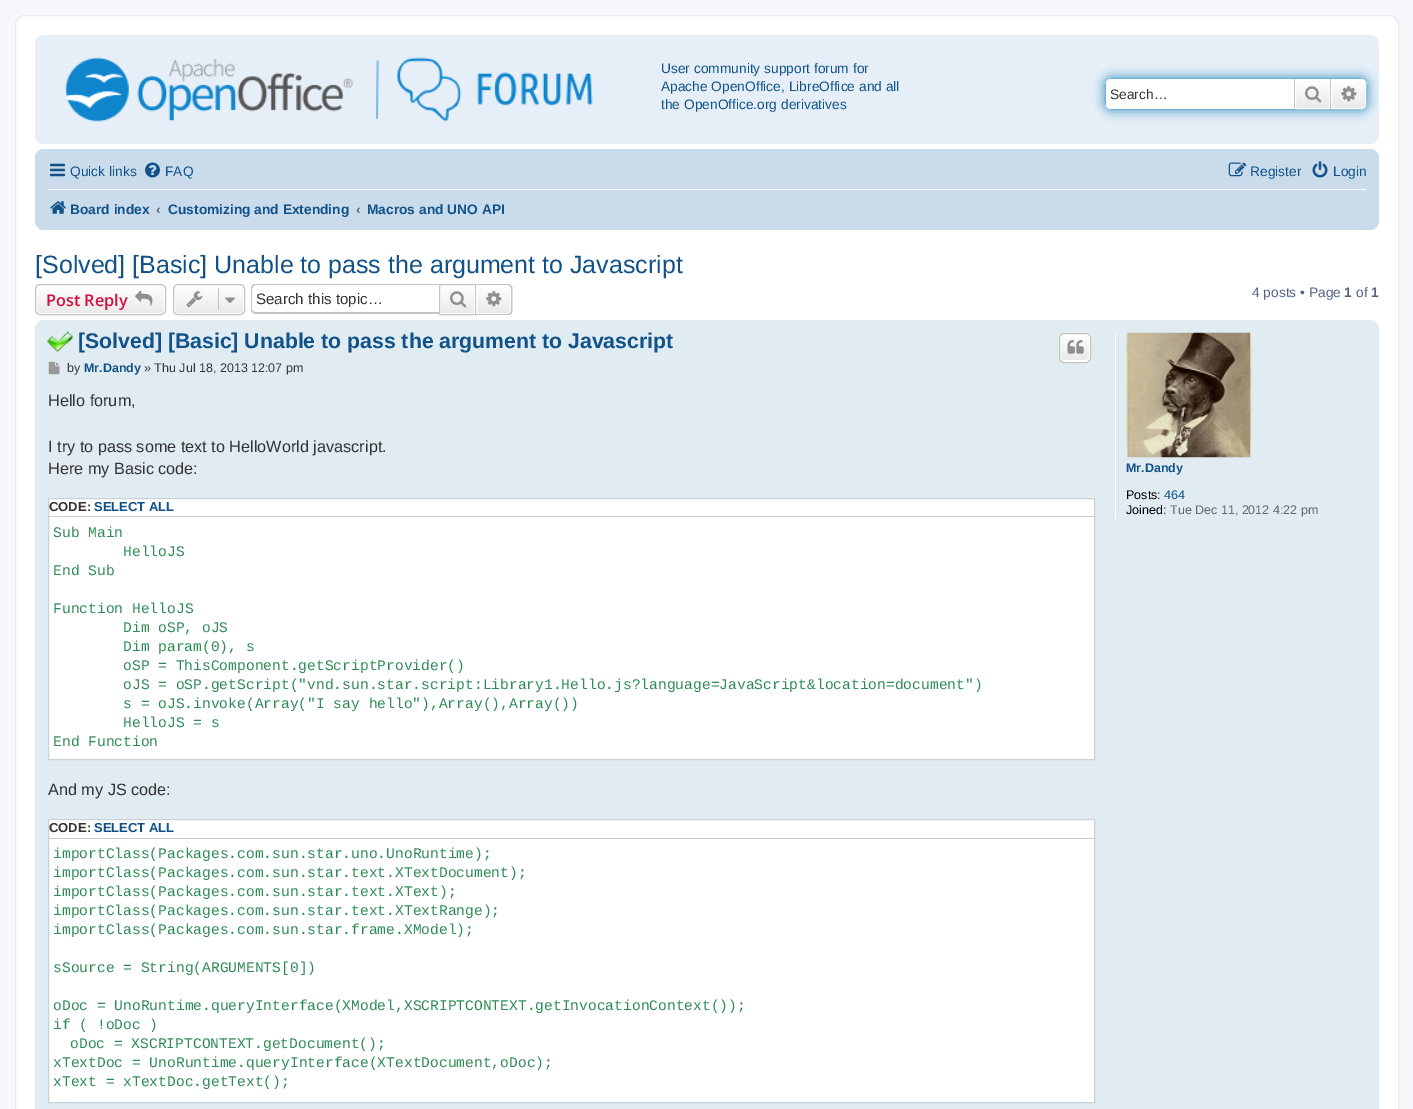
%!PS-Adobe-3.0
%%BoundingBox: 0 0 1413 1109
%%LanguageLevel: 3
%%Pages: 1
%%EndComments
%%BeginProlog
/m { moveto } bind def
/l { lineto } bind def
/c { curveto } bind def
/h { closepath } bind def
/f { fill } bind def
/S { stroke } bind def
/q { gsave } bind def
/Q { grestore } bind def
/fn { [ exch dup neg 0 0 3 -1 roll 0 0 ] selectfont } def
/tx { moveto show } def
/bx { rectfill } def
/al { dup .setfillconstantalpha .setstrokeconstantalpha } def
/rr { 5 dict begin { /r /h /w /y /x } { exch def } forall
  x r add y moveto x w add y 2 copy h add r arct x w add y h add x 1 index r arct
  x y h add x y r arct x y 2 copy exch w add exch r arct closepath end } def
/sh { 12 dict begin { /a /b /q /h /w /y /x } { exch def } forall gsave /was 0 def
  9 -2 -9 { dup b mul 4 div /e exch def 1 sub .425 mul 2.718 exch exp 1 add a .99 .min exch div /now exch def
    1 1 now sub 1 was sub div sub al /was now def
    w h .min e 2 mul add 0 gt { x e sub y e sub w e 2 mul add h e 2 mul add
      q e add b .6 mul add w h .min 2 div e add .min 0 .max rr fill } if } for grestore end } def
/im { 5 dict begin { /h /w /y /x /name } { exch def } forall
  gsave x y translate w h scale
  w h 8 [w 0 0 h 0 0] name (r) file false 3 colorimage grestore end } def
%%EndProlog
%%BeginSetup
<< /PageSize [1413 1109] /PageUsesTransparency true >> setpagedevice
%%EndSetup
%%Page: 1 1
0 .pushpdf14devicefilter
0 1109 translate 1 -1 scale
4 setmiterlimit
0.961 0.969 0.98 setrgbcolor
0 0 1413 1109 bx
1 setgray
15.5 15.5 1383 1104 9.5 rr q f Q
0.902 0.914 0.929 setrgbcolor
S
0.902 0.937 0.969 setrgbcolor
35 35 1344 109 9 rr f
(image0.raw) 65 57 528 65 im
/LiberationSans-Regular 13.75 fn
0.063 0.322 0.537 setrgbcolor
(User community support forum for) 661 73 tx
(Apache OpenOffice, LibreOffice and all) 661 91 tx
(the OpenOffice.org derivatives) 661 109 tx
0 0.459 0.69 setrgbcolor
1106 79 260 30 5 6 1 sh
1 setgray
1111 79 m 1294 79 l 1294 109 l 1111 109 l 1108 109 1106 107 1106 104 c 1106 84 l 1106 81 1108 79 1111 79 c h f
0.2 setgray
(Search…) 1110 99 tx
q 1296 80 m 1329 80 l 1329 108 l 1296 108 l h clip newpath
<< /ShadingType 2 /ColorSpace /DeviceRGB /Coords [1313 79 1313 109] /Extend [true true] /Function << /FunctionType 2 /Domain [0 1] /C0 [1 1 1] /C1 [0.914 0.914 0.914] /N 1 >> >> shfill Q
1 setgray
1295.5 79.5 34 29 rectstroke
0.78 0.765 0.749 setrgbcolor
1330 79 1 30 bx
1294 79 1 30 bx
(image1.raw) 1305 86 17 17 im
q 1331.5 79.5 m 1361 79.5 l 1363.5 79.5 1365.5 81.5 1365.5 84 c 1365.5 104 l 1365.5 106.5 1363.5 108.5 1361 108.5 c 1331.5 108.5 l h clip newpath
<< /ShadingType 2 /ColorSpace /DeviceRGB /Coords [1349 79 1349 109] /Extend [true true] /Function << /FunctionType 2 /Domain [0 1] /C0 [1 1 1] /C1 [0.914 0.914 0.914] /N 1 >> >> shfill Q
1 setgray
1331.5 79.5 m 1361 79.5 l 1363.5 79.5 1365.5 81.5 1365.5 84 c 1365.5 104 l 1365.5 106.5 1363.5 108.5 1361 108.5 c 1331.5 108.5 l h S
(image2.raw) 1341 86 16 16 im
0.792 0.863 0.922 setrgbcolor
35 149 1344 81 9 rr f
(image3.raw) 50 163 15 14 im
0.063 0.322 0.537 setrgbcolor
(Quick links) 70 176 tx
(image4.raw) 145 162 15 16 im
(FAQ) 165 176 tx
(image5.raw) 1228 162 19 15 im
(Register) 1250 176 tx
(image6.raw) 1312 161 16 17 im
(Login) 1333 176 tx
1 setgray
48 189 1318 1 bx
(image7.raw) 50 201 16 13 im
/LiberationSans-Bold 13.75 fn
0.063 0.322 0.537 setrgbcolor
(Board index) 70 214 tx
0.325 0.392 0.51 setrgbcolor
(‹) 156 214 tx
0.063 0.322 0.537 setrgbcolor
(Customizing and Extending) 168 214 tx
0.325 0.392 0.51 setrgbcolor
(‹) 356 214 tx
0.063 0.322 0.537 setrgbcolor
(Macros and UNO API) 367 214 tx
/LiberationSans-Regular 25 fn
([Solved] [Basic] Unable to pass the argument to Javascript) 35 273 tx
q
35 284 131 31 5 rr clip newpath
q 35 285 m 166 285 l 166 314 l 35 314 l h clip newpath
<< /ShadingType 2 /ColorSpace /DeviceRGB /Coords [101 285 101 314] /Extend [true true] /Function << /FunctionType 2 /Domain [0 1] /C0 [1 1 1] /C1 [0.914 0.914 0.914] /N 1 >> >> shfill Q
Q
1 setgray
36.5 285.5 128 28 3.5 rr S
0.78 0.765 0.749 setrgbcolor
35.5 284.5 130 30 4.5 rr S
/OpenSans-SemiBold 16.25 fn
0.827 0.067 0.255 setrgbcolor
(Post Reply) 46 306 tx
(image8.raw) 135 290 18 17 im
q
173 284 72 31 5 rr clip newpath
q 173 285 m 245 285 l 245 314 l 173 314 l h clip newpath
<< /ShadingType 2 /ColorSpace /DeviceRGB /Coords [209 285 209 314] /Extend [true true] /Function << /FunctionType 2 /Domain [0 1] /C0 [1 1 1] /C1 [0.914 0.914 0.914] /N 1 >> >> shfill Q
Q
1 setgray
174.5 285.5 69 28 3.5 rr S
0.78 0.765 0.749 setrgbcolor
173.5 284.5 71 30 4.5 rr S
(image9.raw) 186 291 17 17 im
218 288 1 22 bx
(image10.raw) 225 297 10 6 im
256 284 m 439 284 l 439 314 l 256 314 l 253 314 251 312 251 309 c 251 289 l 251 286 253 284 256 284 c h 256 285 m 439 285 l 439 312 l 256 312 l 254 312 252 311 252 309 c 252 289 l 252 287 254 285 256 285 c h eofill
/LiberationSans-Regular 15.1 fn
0.2 setgray
(Search this topic…) 256 304 tx
q 441 288 m 474 288 l 474 313 l 441 313 l h clip newpath
<< /ShadingType 2 /ColorSpace /DeviceRGB /Coords [458 285 458 314] /Extend [true true] /Function << /FunctionType 2 /Domain [0 1] /C0 [1 1 1] /C1 [0.914 0.914 0.914] /N 1 >> >> shfill Q
0.78 0.765 0.749 setrgbcolor
439.5 284.5 36 30 rectstroke
(image11.raw) 450 291 17 17 im
q 476.5 285.5 m 507 285.5 l 509 285.5 510.5 287 510.5 289 c 510.5 310 l 510.5 312 509 313.5 507 313.5 c 476.5 313.5 l h clip newpath
<< /ShadingType 2 /ColorSpace /DeviceRGB /Coords [494 285 494 314] /Extend [true true] /Function << /FunctionType 2 /Domain [0 1] /C0 [1 1 1] /C1 [0.914 0.914 0.914] /N 1 >> >> shfill Q
1 setgray
476.5 285.5 m 507 285.5 l 509 285.5 510.5 287 510.5 289 c 510.5 310 l 510.5 312 509 313.5 507 313.5 c 476.5 313.5 l h S
0.78 0.765 0.749 setrgbcolor
476 284 m 507.5 284 l 510.5 284 512.5 286 512.5 289 c 512.5 310 l 512.5 313 510.5 315 507.5 315 c 476 315 l h 476 285 m 507.5 285 l 509.5 285 511 286.5 511 289 c 511 310 l 511 312 509.5 314 507.5 314 c 476 314 l h eofill
(image12.raw) 486 291 16 16 im
/LiberationSans-Regular 13.75 fn
0.325 0.392 0.51 setrgbcolor
(4 posts • Page) 1252 297 tx
/LiberationSans-Bold 13.75 fn
(1) 1344 297 tx
/LiberationSans-Regular 13.75 fn
(of) 1356 297 tx
/LiberationSans-Bold 13.75 fn
(1) 1371 297 tx
0.882 0.922 0.949 setrgbcolor
35 320 1344 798 9 rr f
(image13.raw) 47 331 26 21 im
/LiberationSans-Bold 21.25 fn
0.063 0.322 0.537 setrgbcolor
([Solved] [Basic] Unable to pass the argument to Javascript) 78 348 tx
q
1059 333 32 30 5 rr clip newpath
q 1059 334 m 1091 334 l 1091 361 l 1059 361 l h clip newpath
<< /ShadingType 2 /ColorSpace /DeviceRGB /Coords [1075 334 1075 361] /Extend [true true] /Function << /FunctionType 2 /Domain [0 1] /C0 [1 1 1] /C1 [0.914 0.914 0.914] /N 1 >> >> shfill Q
q 1059 361 m 1091 361 l 1091 363 l 1059 363 l h clip newpath
<< /ShadingType 2 /ColorSpace /DeviceRGB /Coords [1075 361 1075 389] /Extend [true true] /Function << /FunctionType 2 /Domain [0 1] /C0 [1 1 1] /C1 [0.914 0.914 0.914] /N 1 >> >> shfill Q
Q
1 setgray
1060.5 334.5 29 26 3.5 rr S
0.78 0.765 0.749 setrgbcolor
1059.5 333.5 31 29 4.5 rr S
(image14.raw) 1067 340 17 14 im
(image15.raw) 48 361 12 14 im
/LiberationSans-Regular 12.5 fn
0.2 setgray
(by) 67 372 tx
/LiberationSans-Bold 12.5 fn
0.063 0.322 0.537 setrgbcolor
(Mr.Dandy) 84 372 tx
/LiberationSans-Regular 12.5 fn
0.2 setgray
(» Thu Jul 18, 2013 12:07 pm) 144 372 tx
/LiberationSans-Regular 16.25 fn
(Hello forum,) 48 406 tx
(I try to pass some text to HelloWorld javascript.) 48 452 tx
(Here my Basic code:) 48 474 tx
1 setgray
48.5 498.5 m 1094.5 498.5 l 1094.5 759.5 l 48.5 759.5 l h q f Q
0.788 0.824 0.847 setrgbcolor
S
0.8 setgray
49 516 1045 1 bx
/LiberationSans-Bold 13 fn
0.2 setgray
(CODE:) 49 511 tx
0.063 0.322 0.537 setrgbcolor
(SELECT ALL) 94 511 tx
/LiberationMono-Regular 14.62 fn
0.18 0.545 0.341 setrgbcolor
(Sub Main) 53 537 tx
(HelloJS) 123 556 tx
(End Sub) 53 575 tx
(Function HelloJS) 53 613 tx
(Dim oSP, oJS) 123 632 tx
(Dim param\(0\), s) 123 651 tx
(oSP = ThisComponent.getScriptProvider\(\)) 123 670 tx
(oJS = oSP.getScript\("vnd.sun.star.script:Library1.Hello.js?language=JavaScript&location=document"\)) 123 689 tx
(s = oJS.invoke\(Array\("I say hello"\),Array\(\),Array\(\)\)) 123 708 tx
(HelloJS = s) 123 727 tx
(End Function) 53 746 tx
/LiberationSans-Regular 16.25 fn
0.2 setgray
(And my JS code:) 48 795 tx
1 setgray
48.5 819.5 m 1094.5 819.5 l 1094.5 1102.5 l 48.5 1102.5 l h q f Q
0.788 0.824 0.847 setrgbcolor
S
0.8 setgray
49 838 1045 1 bx
/LiberationSans-Bold 13 fn
0.2 setgray
(CODE:) 49 832 tx
0.063 0.322 0.537 setrgbcolor
(SELECT ALL) 94 832 tx
/LiberationMono-Regular 14.62 fn
0.18 0.545 0.341 setrgbcolor
(importClass\(Packages.com.sun.star.uno.UnoRuntime\);) 53 858 tx
(importClass\(Packages.com.sun.star.text.XTextDocument\);) 53 877 tx
(importClass\(Packages.com.sun.star.text.XText\);) 53 896 tx
(importClass\(Packages.com.sun.star.text.XTextRange\);) 53 915 tx
(importClass\(Packages.com.sun.star.frame.XModel\);) 53 934 tx
(sSource = String\(ARGUMENTS[0]\)) 53 972 tx
(oDoc = UnoRuntime.queryInterface\(XModel,XSCRIPTCONTEXT.getInvocationContext\(\)\);) 53 1010 tx
(if \( !oDoc \)) 53 1029 tx
(oDoc = XSCRIPTCONTEXT.getDocument\(\);) 70 1048 tx
(xTextDoc = UnoRuntime.queryInterface\(XTextDocument,oDoc\);) 53 1067 tx
(xText = xTextDoc.getText\(\);) 53 1086 tx
1 setgray
1115 333 1 186 bx
(image16.raw) 1126 332 126 126 im
/LiberationSans-Bold 12.5 fn
0.063 0.322 0.537 setrgbcolor
(Mr.Dandy) 1126 472 tx
/LiberationSans-Regular 12.5 fn
0 setgray
(Posts:) 1126 499 tx
0.063 0.322 0.537 setrgbcolor
(464) 1164 499 tx
0 setgray
(Joined:) 1126 514 tx
0.4 setgray
(Tue Dec 11, 2012 4:22 pm) 1170 514 tx
.poppdf14devicefilter showpage
%%EOF
